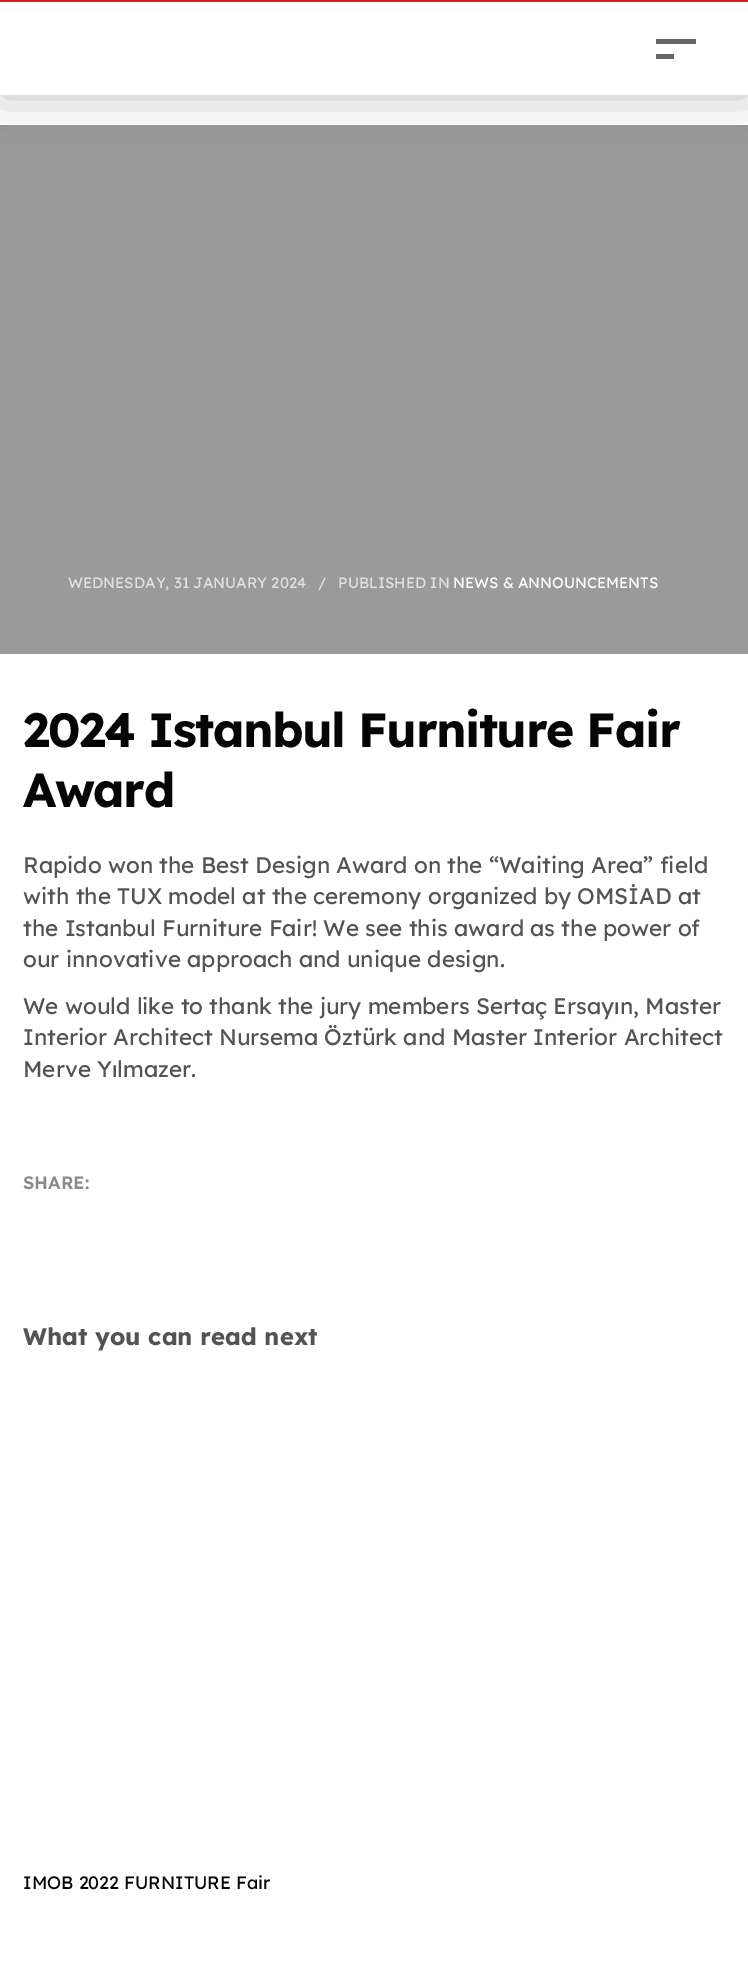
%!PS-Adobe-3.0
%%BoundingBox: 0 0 748 1964
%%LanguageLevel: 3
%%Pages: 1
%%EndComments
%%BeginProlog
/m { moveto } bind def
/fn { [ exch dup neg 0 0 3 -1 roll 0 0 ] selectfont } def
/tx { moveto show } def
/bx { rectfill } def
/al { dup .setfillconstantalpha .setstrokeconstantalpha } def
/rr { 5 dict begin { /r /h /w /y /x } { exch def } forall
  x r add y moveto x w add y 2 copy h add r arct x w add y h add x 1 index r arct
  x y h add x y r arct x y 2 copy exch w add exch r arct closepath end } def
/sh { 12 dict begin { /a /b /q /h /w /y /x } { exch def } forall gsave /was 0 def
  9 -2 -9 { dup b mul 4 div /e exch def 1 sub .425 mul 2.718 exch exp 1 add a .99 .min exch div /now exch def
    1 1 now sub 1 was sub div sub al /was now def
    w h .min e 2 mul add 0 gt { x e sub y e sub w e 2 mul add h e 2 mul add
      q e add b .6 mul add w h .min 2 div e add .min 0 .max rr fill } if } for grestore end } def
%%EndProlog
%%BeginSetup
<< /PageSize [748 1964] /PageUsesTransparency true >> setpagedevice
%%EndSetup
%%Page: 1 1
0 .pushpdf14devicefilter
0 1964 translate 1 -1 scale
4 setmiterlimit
1 setgray
0 0 748 1964 bx
0.604 setgray
0 125 748 529 bx
0 setgray
0 0 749 95 0 22.5 0.25 sh
1 setgray
0 2 748 93 bx
0.804 0.129 0.133 setrgbcolor
0 0 748 2 bx
0.4 setgray
656 39 40 5 bx
656 54 18 5 bx
/LexendDeca-Regular 15 fn
0.882 setgray
(WEDNESDAY, 31 JANUARY 2024) 68 588 tx
(/) 318 588 tx
(PUBLISHED IN) 338 588 tx
1 setgray
(NEWS & ANNOUNCEMENTS) 453 588 tx
/LexendDeca-Bold 48 fn
0.02 setgray
23 747 m -1.5 0 (2024 Istanbul Furniture Fair) ashow
23 807 m -1.5 0 (Award) ashow
/LexendDeca-Regular 22.5 fn
0.325 setgray
(Rapido won the Best Design Award on the “Waiting Area” field) 23 873 tx
(with the TUX model at the ceremony organized by OMSİAD at) 23 904 tx
(the Istanbul Furniture Fair! We see this award as the power of) 23 936 tx
(our innovative approach and unique design.) 23 967 tx
(We would like to thank the jury members Sertaç Ersayın, Master) 23 1014 tx
(Interior Architect Nursema Öztürk and Master Interior Architect) 23 1045 tx
(Merve Yılmazer.) 23 1077 tx
/LexendDeca-SemiBold 18 fn
0.541 setgray
(SHARE:) 23 1189 tx
/LexendDeca-Bold 24 fn
0.325 setgray
(What you can read next) 23 1345 tx
/LexendDeca-Regular 18 fn
0.02 setgray
(IMOB 2022 FURNITURE Fair) 23 1889 tx
.poppdf14devicefilter showpage
%%EOF
